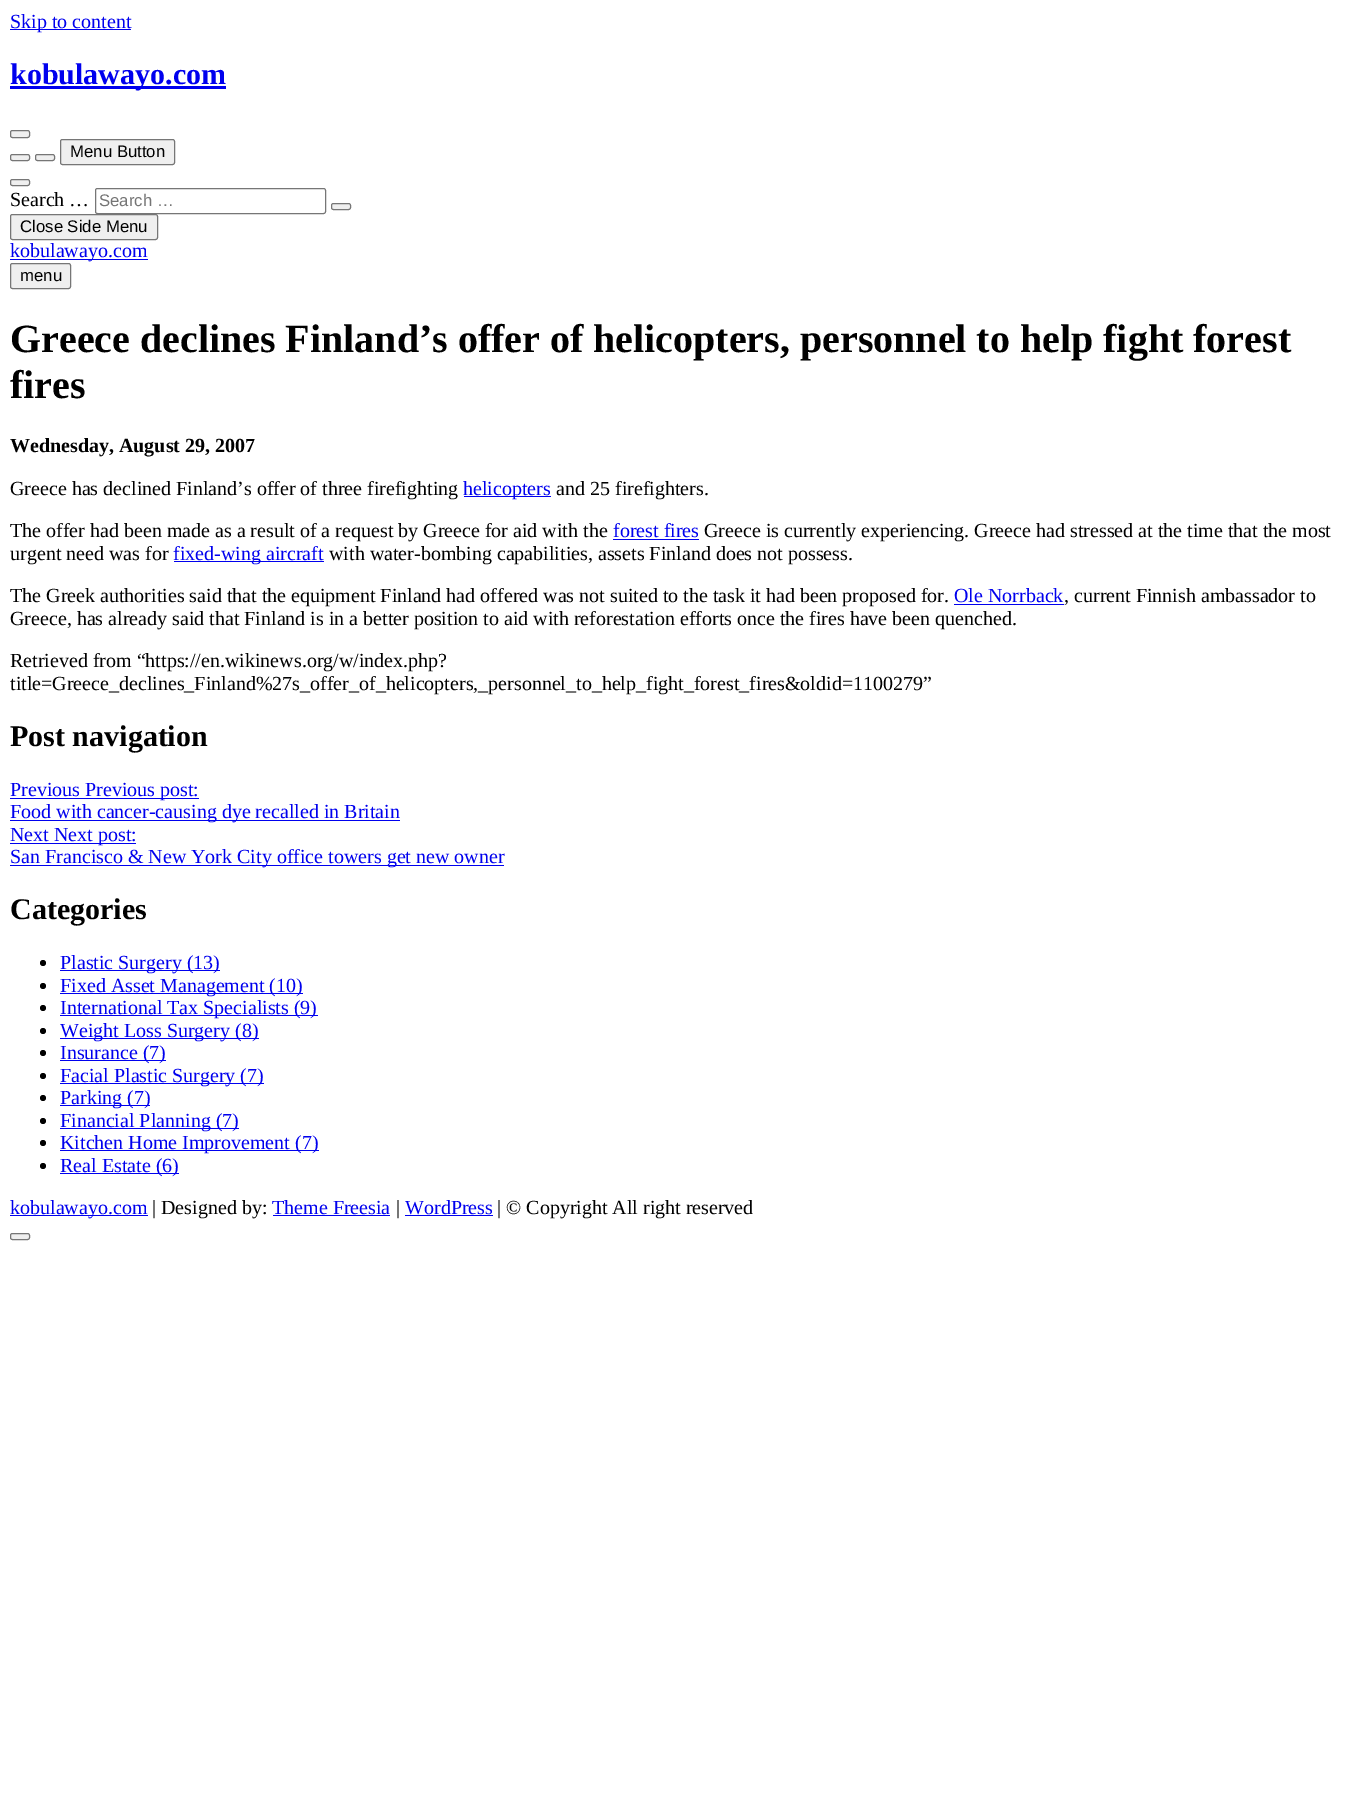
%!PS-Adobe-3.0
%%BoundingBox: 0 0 1352 1796
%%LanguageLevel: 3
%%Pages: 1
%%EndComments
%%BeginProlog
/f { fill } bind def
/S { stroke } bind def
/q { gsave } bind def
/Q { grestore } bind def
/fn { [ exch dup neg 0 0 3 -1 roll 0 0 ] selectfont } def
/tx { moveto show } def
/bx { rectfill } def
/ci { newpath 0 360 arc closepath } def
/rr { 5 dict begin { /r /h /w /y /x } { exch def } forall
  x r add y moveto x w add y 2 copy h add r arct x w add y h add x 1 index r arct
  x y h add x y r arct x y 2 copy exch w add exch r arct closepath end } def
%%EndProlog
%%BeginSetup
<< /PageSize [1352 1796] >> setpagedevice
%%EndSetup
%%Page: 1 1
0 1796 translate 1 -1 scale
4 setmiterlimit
1 setgray
0 0 1352 1796 bx
0 0 0.933 setrgbcolor
10 29 121 1 bx
/LiberationSerif-Regular 20 fn
(Skip to content) 10 28 tx
10 86 216 3 bx
/LiberationSerif-Bold 30 fn
(kobulawayo.com) 10 84 tx
0.937 setgray
10.5 130.5 19 7 2 rr q f Q
0.463 setgray
S
0.937 setgray
10.5 154.5 19 6 2 rr q f Q
0.463 setgray
S
0.937 setgray
35.5 154.5 19 6 2 rr q f Q
0.463 setgray
S
0.937 setgray
60.5 139.5 114 25 2 rr q f Q
0.463 setgray
S
/LiberationSans-Regular 16.75 fn
0 setgray
(Menu Button) 70 157 tx
0.937 setgray
10.5 179.5 19 6 2 rr q f Q
0.463 setgray
S
/LiberationSerif-Regular 20 fn
0 setgray
(Search …) 10 206 tx
0.463 setgray
95.5 188.5 230 25 2 rr S
/LiberationSans-Regular 16.75 fn
0.459 setgray
(Search …) 99 206 tx
0.937 setgray
331.5 203.5 19 6 2 rr q f Q
0.463 setgray
S
0.937 setgray
10.5 214.5 147 25 2 rr q f Q
0.463 setgray
S
0 setgray
(Close Side Menu) 20 232 tx
0 0 0.933 setrgbcolor
10 259 138 1 bx
/LiberationSerif-Regular 20 fn
(kobulawayo.com) 10 257 tx
0.937 setgray
10.5 263.5 60 25 2 rr q f Q
0.463 setgray
S
/LiberationSans-Regular 16.75 fn
0 setgray
(menu) 20 281 tx
/LiberationSerif-Bold 40 fn
(Greece declines Finland’s offer of helicopters, personnel to help fight forest) 10 352 tx
(fires) 10 398 tx
/LiberationSerif-Bold 20 fn
(Wednesday, August 29, 2007) 10 452 tx
/LiberationSerif-Regular 20 fn
(Greece has declined Finland’s offer of three firefighting) 10 495 tx
0 0 0.933 setrgbcolor
464 496 87 1 bx
(helicopters) 463 495 tx
0 setgray
(and 25 firefighters.) 556 495 tx
(The offer had been made as a result of a request by Greece for aid with the) 10 537 tx
0 0 0.933 setrgbcolor
(forest fires) 613 537 tx
613 539 86 1 bx
0 setgray
(Greece is currently experiencing. Greece had stressed at the time that the most) 704 537 tx
(urgent need was for) 10 560 tx
0 0 0.933 setrgbcolor
174 561 150 1 bx
(fixed-wing aircraft) 173 560 tx
0 setgray
(with water-bombing capabilities, assets Finland does not possess.) 329 560 tx
(The Greek authorities said that the equipment Finland had offered was not suited to the task it had been proposed for.) 10 602 tx
0 0 0.933 setrgbcolor
(Ole Norrback) 954 602 tx
954 604 110 1 bx
0 setgray
(, current Finnish ambassador to) 1064 602 tx
(Greece, has already said that Finland is in a better position to aid with reforestation efforts once the fires have been quenched.) 10 625 tx
(Retrieved from “https://en.wikinews.org/w/index.php?) 10 667 tx
(title=Greece_declines_Finland%27s_offer_of_helicopters,_personnel_to_help_fight_forest_fires&oldid=1100279”) 10 690 tx
/LiberationSerif-Bold 30 fn
(Post navigation) 10 746 tx
0 0 0.933 setrgbcolor
10 798 189 1 bx
/LiberationSerif-Regular 20 fn
(Previous Previous post:) 10 796 tx
10 820 390 1 bx
(Food with cancer-causing dye recalled in Britain) 10 818 tx
10 843 126 1 bx
(Next Next post:) 10 841 tx
10 865 494 1 bx
(San Francisco & New York City office towers get new owner) 10 863 tx
/LiberationSerif-Bold 30 fn
0 setgray
(Categories) 10 919 tx
43 963 3 ci f
0 0 0.933 setrgbcolor
60 970 160 1 bx
/LiberationSerif-Regular 20 fn
(Plastic Surgery \(13\)) 60 969 tx
0 setgray
43 986 3 ci f
0 0 0.933 setrgbcolor
60 993 243 1 bx
(Fixed Asset Management \(10\)) 60 992 tx
0 setgray
43 1008 3 ci f
0 0 0.933 setrgbcolor
60 1015 258 1 bx
(International Tax Specialists \(9\)) 60 1014 tx
0 setgray
43 1031 3 ci f
0 0 0.933 setrgbcolor
60 1038 199 1 bx
(Weight Loss Surgery \(8\)) 60 1037 tx
0 setgray
43 1053 3 ci f
0 0 0.933 setrgbcolor
60 1060 106 1 bx
(Insurance \(7\)) 60 1059 tx
0 setgray
43 1076 3 ci f
0 0 0.933 setrgbcolor
60 1083 204 1 bx
(Facial Plastic Surgery \(7\)) 60 1082 tx
0 setgray
43 1098 3 ci f
0 0 0.933 setrgbcolor
60 1105 90 1 bx
(Parking \(7\)) 60 1104 tx
0 setgray
43 1121 3 ci f
0 0 0.933 setrgbcolor
60 1128 179 1 bx
(Financial Planning \(7\)) 60 1127 tx
0 setgray
43 1143 3 ci f
0 0 0.933 setrgbcolor
60 1150 259 1 bx
(Kitchen Home Improvement \(7\)) 60 1149 tx
0 setgray
43 1166 3 ci f
0 0 0.933 setrgbcolor
60 1173 119 1 bx
(Real Estate \(6\)) 60 1172 tx
10 1215 138 1 bx
(kobulawayo.com) 10 1214 tx
0 setgray
(| Designed by:) 152 1214 tx
0 0 0.933 setrgbcolor
(Theme Freesia) 272 1214 tx
273 1215 117 1 bx
0 setgray
(|) 396 1214 tx
0 0 0.933 setrgbcolor
(WordPress) 405 1214 tx
405 1215 88 1 bx
0 setgray
(| © Copyright All right reserved) 497 1214 tx
0.937 setgray
10.5 1233.5 19 6 2 rr q f Q
0.463 setgray
S
showpage
%%EOF
